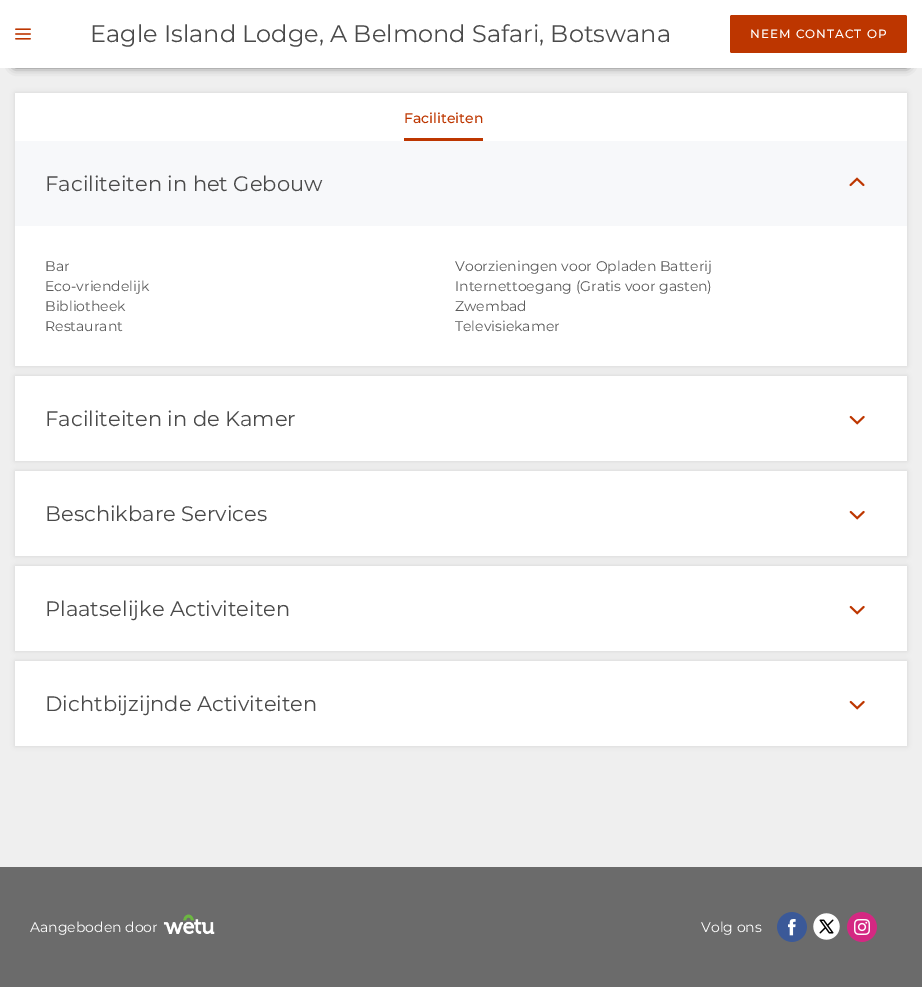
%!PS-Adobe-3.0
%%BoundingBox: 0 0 922 987
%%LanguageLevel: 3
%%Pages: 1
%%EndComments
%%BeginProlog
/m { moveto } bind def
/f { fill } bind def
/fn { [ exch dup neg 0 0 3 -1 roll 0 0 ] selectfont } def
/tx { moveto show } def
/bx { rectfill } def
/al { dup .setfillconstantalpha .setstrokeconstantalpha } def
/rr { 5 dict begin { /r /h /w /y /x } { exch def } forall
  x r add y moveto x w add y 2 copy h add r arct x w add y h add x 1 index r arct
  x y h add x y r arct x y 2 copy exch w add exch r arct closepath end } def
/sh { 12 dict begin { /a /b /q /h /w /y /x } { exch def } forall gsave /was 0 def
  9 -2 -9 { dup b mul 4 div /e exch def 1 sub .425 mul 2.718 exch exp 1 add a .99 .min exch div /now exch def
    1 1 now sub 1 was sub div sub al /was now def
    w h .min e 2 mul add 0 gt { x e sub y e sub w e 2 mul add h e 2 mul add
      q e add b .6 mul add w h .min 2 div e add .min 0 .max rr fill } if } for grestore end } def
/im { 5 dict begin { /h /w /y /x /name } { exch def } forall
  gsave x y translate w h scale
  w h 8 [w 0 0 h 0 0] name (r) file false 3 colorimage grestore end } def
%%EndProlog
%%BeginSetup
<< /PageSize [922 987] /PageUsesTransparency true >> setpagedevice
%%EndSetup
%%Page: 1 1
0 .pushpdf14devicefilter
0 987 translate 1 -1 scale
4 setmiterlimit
0.937 setgray
0 0 922 987 bx
0 setgray
15 27 892 38 0 5 1 sh
1 setgray
0 0 922 68 bx
(image0.raw) 15 28 16 12 im
/Montserrat-Regular 24 fn
0.29 setgray
(Eagle Island Lodge, A Belmond Safari, Botswana) 90 42 tx
0.741 0.212 0 setrgbcolor
730 15 177 38 2 rr f
/Montserrat-Medium 12 fn
1 setgray
750 38 m 1 0 (NEEM CONTACT OP) ashow
0 setgray
15 93 892 273 0 2.5 0.1 sh
1 setgray
15 93 892 273 bx
/Montserrat-Medium 14 fn
0.741 0.212 0 setrgbcolor
(Faciliteiten) 404 123 tx
404 138 79 3 bx
0.969 0.973 0.98 setrgbcolor
15 141 892 85 bx
/Montserrat-Regular 21 fn
0.29 setgray
(Faciliteiten in het Gebouw) 45 191 tx
(image1.raw) 849 177 16 10 im
/Montserrat-Regular 14 fn
0.353 setgray
(Bar) 45 271 tx
(Voorzieningen voor Opladen Batterij) 455 271 tx
(Eco-vriendelijk) 45 291 tx
(Internettoegang \(Gratis voor gasten\)) 455 291 tx
(Bibliotheek) 45 311 tx
(Zwembad) 455 311 tx
(Restaurant) 45 331 tx
(Televisiekamer) 455 331 tx
0 setgray
15 376 892 85 0 2.5 0.1 sh
1 setgray
15 376 892 85 bx
/Montserrat-Regular 21 fn
0.29 setgray
(Faciliteiten in de Kamer) 45 426 tx
(image2.raw) 849 415 16 10 im
0 setgray
15 471 892 85 0 2.5 0.1 sh
1 setgray
15 471 892 85 bx
0.29 setgray
(Beschikbare Services) 45 521 tx
(image2.raw) 849 510 16 10 im
0 setgray
15 566 892 85 0 2.5 0.1 sh
1 setgray
15 566 892 85 bx
0.29 setgray
(Plaatselijke Activiteiten) 45 616 tx
(image2.raw) 849 605 16 10 im
0 setgray
15 661 892 85 0 2.5 0.1 sh
1 setgray
15 661 892 85 bx
0.29 setgray
(Dichtbijzijnde Activiteiten) 45 711 tx
(image2.raw) 849 700 16 10 im
0.42 setgray
0 867 922 120 bx
/Montserrat-Regular 14 fn
1 setgray
(Aangeboden door) 30 932 tx
(image3.raw) 163 914 52 20 im
(Volg ons) 701 932 tx
(image4.raw) 777 912 30 30 im
(image5.raw) 813 913 27 27 im
(image6.raw) 847 912 30 30 im
.poppdf14devicefilter showpage
%%EOF
